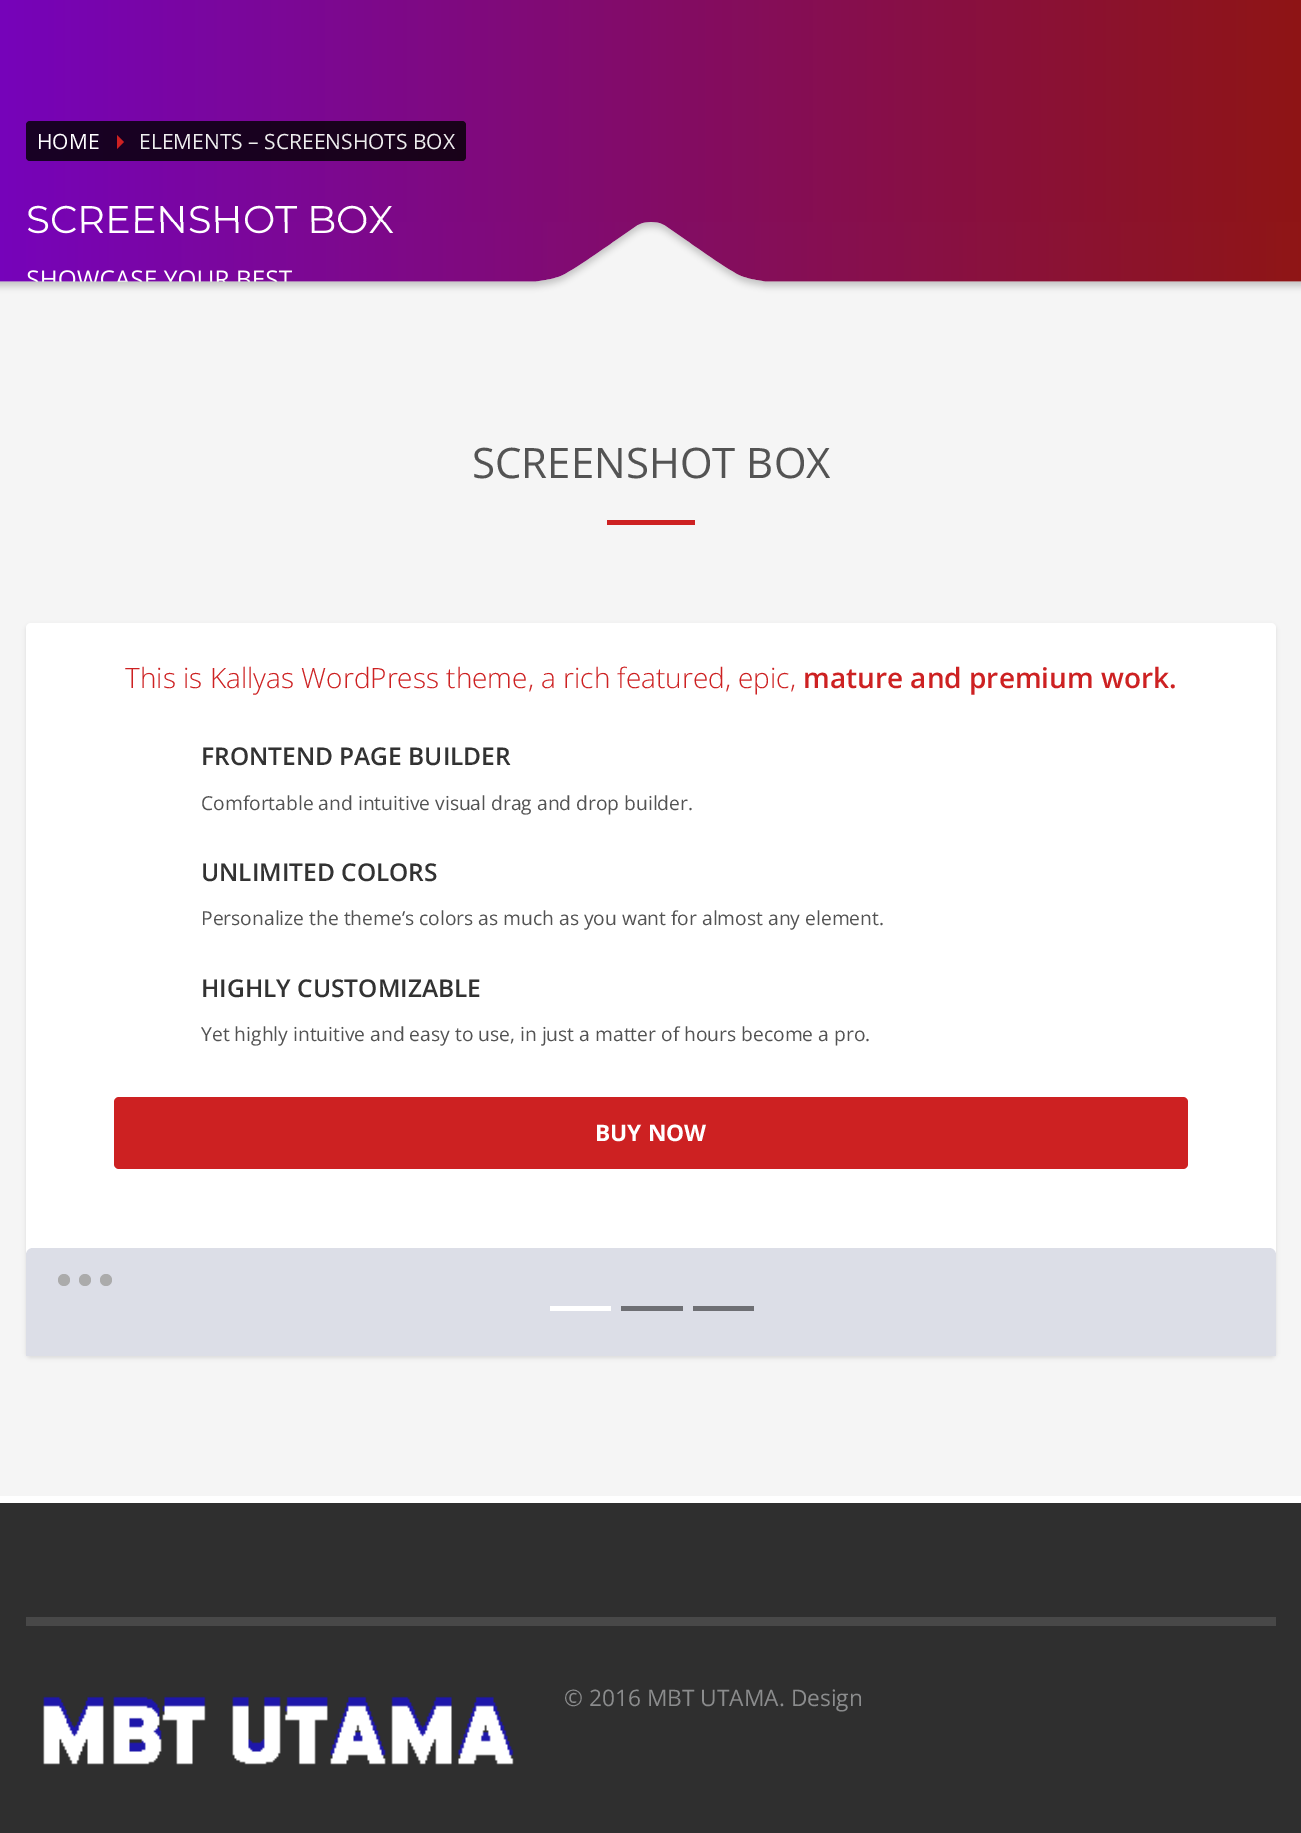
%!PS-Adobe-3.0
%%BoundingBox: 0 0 1301 1833
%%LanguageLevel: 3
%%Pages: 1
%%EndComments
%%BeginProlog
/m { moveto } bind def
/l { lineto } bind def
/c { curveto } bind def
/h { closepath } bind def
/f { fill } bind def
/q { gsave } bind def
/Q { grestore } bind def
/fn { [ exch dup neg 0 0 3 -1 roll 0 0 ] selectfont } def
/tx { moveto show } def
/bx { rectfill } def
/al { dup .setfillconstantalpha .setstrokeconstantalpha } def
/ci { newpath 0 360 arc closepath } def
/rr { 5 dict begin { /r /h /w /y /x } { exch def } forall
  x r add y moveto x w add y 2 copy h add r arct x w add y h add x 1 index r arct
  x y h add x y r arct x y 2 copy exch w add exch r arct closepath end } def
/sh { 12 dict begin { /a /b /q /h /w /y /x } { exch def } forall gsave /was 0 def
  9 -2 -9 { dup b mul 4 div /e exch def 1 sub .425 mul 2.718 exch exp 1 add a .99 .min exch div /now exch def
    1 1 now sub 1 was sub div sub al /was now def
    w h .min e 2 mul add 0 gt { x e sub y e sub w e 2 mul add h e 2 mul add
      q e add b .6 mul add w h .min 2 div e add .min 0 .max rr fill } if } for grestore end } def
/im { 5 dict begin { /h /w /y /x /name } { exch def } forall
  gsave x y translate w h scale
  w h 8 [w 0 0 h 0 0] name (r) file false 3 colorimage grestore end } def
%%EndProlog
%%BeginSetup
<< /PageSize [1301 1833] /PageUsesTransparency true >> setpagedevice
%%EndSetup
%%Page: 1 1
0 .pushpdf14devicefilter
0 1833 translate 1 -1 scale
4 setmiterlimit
0.961 setgray
0 0 1301 1833 bx
q 0 0 m 1301 0 l 1301 282 l 0 282 l h clip newpath
<< /ShadingType 2 /ColorSpace /DeviceRGB /Coords [0 77 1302 77] /Extend [true true] /Function << /FunctionType 2 /Domain [0 1] /C0 [0.463 0.012 0.729] /C1 [0.561 0.082 0.082] /N 1 >> >> shfill Q
0.8 al
0 setgray
26 121 440 40 4 rr f
/OpenSans-Regular 21 fn
1 al
1 setgray
(HOME) 37 149 tx
0.804 0.129 0.133 setrgbcolor
117 149 m 117 135 l 124 142 l h f
0.933 setgray
(ELEMENTS – SCREENSHOTS BOX) 139 149 tx
/Montserrat-Regular 38.5 fn
1 setgray
(SCREENSHOT BOX) 26 233 tx
/OpenSans-Regular 24.5 fn
(SHOWCASE YOUR BEST) 26 288 tx
(image0.raw) 0 222 1301 74 im
/OpenSans-Regular 42 fn
0.325 setgray
(SCREENSHOT BOX) 472 478 tx
0.804 0.129 0.133 setrgbcolor
607 520 88 5 bx
0 setgray
26 625 1250 733 5 2 0.1 sh
1 setgray
26 623 1250 733 5 rr f
/OpenSans-Light 28 fn
0.804 0.129 0.133 setrgbcolor
(This is Kallyas WordPress theme, a rich featured, epic,) 125 688 tx
/OpenSans-SemiBold 28 fn
(mature and premium work.) 803 688 tx
/OpenSans-SemiBold 24.5 fn
0.196 setgray
(FRONTEND PAGE BUILDER) 201 765 tx
/OpenSans-Regular 19.25 fn
0.325 setgray
(Comfortable and intuitive visual drag and drop builder.) 201 810 tx
/OpenSans-SemiBold 24.5 fn
0.196 setgray
(UNLIMITED COLORS) 201 881 tx
/OpenSans-Regular 19.25 fn
0.325 setgray
(Personalize the theme’s colors as much as you want for almost any element.) 201 925 tx
/OpenSans-SemiBold 24.5 fn
0.196 setgray
(HIGHLY CUSTOMIZABLE) 201 997 tx
/OpenSans-Regular 19.25 fn
0.325 setgray
(Yet highly intuitive and easy to use, in just a matter of hours become a pro.) 201 1041 tx
0.804 0.129 0.133 setrgbcolor
114 1097 1074 72 5 rr f
/OpenSans-Bold 22.75 fn
1 setgray
(BUY NOW) 595 1141 tx
0.863 0.871 0.906 setrgbcolor
33 1248 m 1269 1248 l 1273 1248 1276 1251 1276 1255 c 1276 1356 l 26 1356 l 26 1255 l 26 1251 29 1248 33 1248 c h f
0.671 setgray
106 1280 6 ci f
64 1280 6 ci f
85 1280 6 ci f
1 setgray
550 1306 61 5 bx
0.431 0.435 0.455 setrgbcolor
621 1306 62 5 bx
693 1306 61 5 bx
0.184 setgray
0 1503 1301 330 bx
1 setgray
0 1496 1301 7 bx
0.282 setgray
26 1617 1250 9 bx
(image1.raw) 43 1696 471 69 im
/OpenSans-Regular 22.75 fn
0.545 0.549 0.553 setrgbcolor
(© 2016 MBT UTAMA. Design) 564 1706 tx
.poppdf14devicefilter showpage
%%EOF
